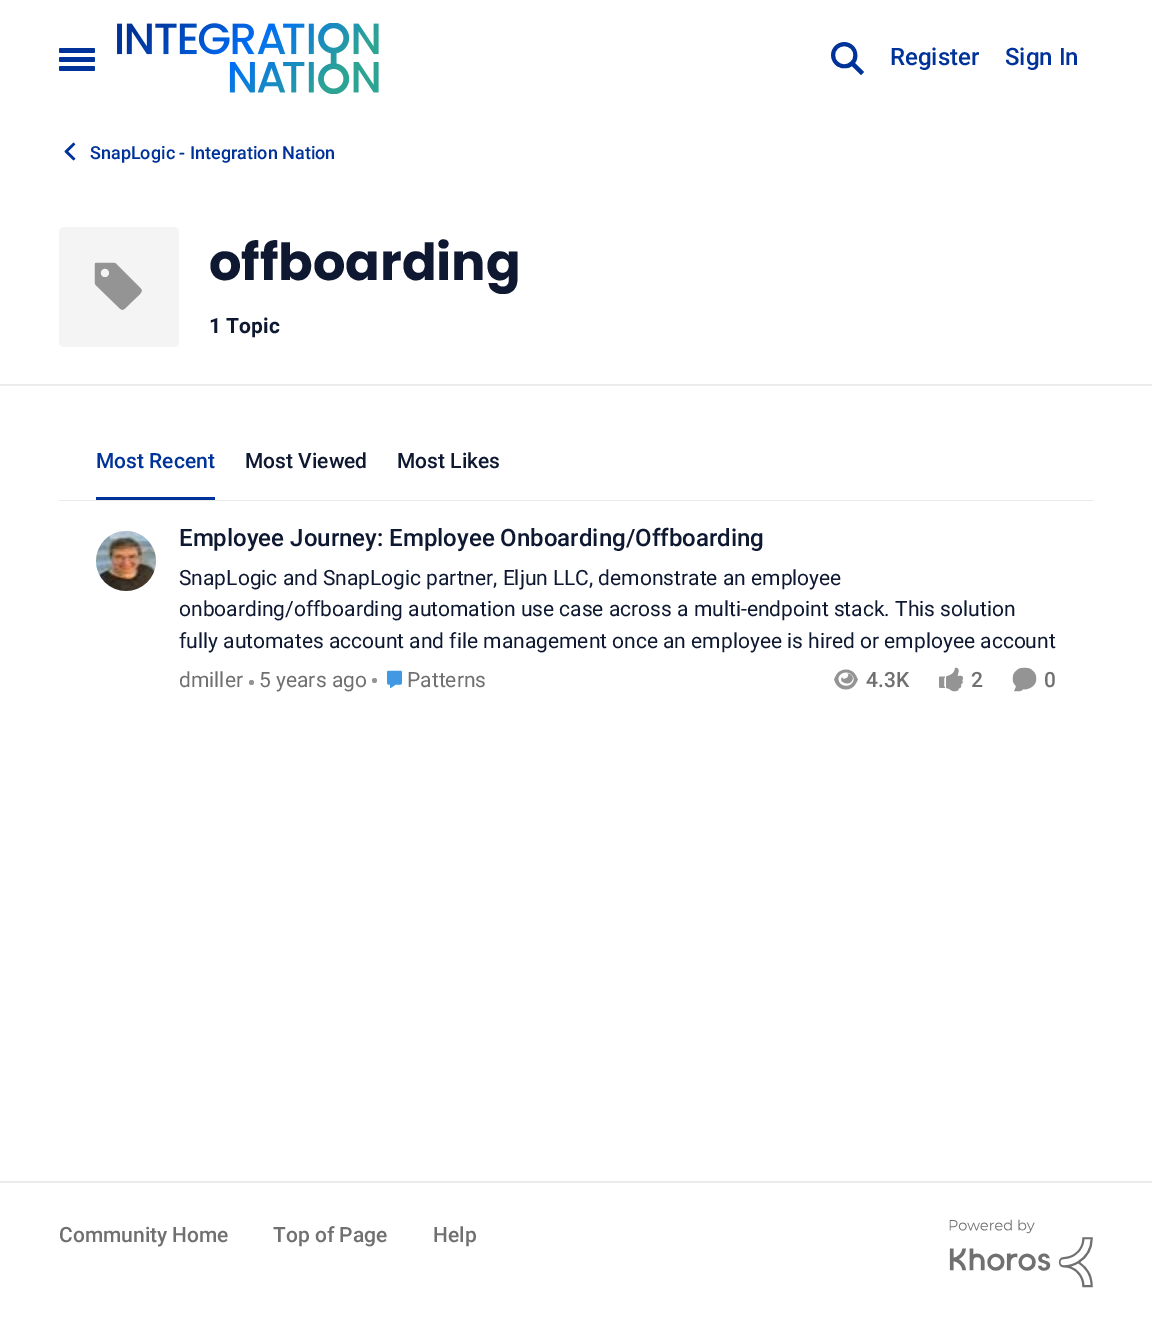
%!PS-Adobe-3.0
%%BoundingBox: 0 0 1152 1326
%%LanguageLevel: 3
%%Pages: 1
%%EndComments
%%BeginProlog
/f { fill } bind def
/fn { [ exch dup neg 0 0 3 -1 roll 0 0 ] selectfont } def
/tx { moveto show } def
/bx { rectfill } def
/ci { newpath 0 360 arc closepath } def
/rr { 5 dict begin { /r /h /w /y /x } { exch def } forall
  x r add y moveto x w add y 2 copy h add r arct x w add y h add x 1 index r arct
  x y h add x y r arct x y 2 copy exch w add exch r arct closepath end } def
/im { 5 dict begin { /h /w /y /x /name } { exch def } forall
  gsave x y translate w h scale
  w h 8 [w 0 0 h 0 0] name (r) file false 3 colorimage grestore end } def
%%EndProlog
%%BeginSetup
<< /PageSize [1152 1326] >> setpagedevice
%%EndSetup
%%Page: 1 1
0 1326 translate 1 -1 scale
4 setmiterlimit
1 setgray
0 0 1152 1326 bx
0 0.2 0.6 setrgbcolor
59 48 36 5 1.5 rr f
59 57 36 5 1.5 rr f
59 66 36 5 1.5 rr f
(image0.raw) 117 23 262 71 im
(image1.raw) 831 42 33 34 im
/Roboto-Medium 24 fn
(Register) 890 65 tx
(Sign In) 1005 65 tx
(image2.raw) 64 142 12 19 im
/Roboto-Medium 18 fn
(SnapLogic - Integration Nation) 90 159 tx
0.922 setgray
0 384 1152 2 bx
0.957 setgray
59 227 120 120 5 rr f
(image3.raw) 94 262 48 48 im
/Poppins-Bold 51 fn
0.055 0.094 0.192 setrgbcolor
(offboarding) 209 280 tx
/Roboto-Bold 21 fn
(1 Topic) 209 333 tx
0.922 setgray
59 500 1035 1 bx
/Roboto-Medium 21 fn
0 0.2 0.6 setrgbcolor
(Most Recent) 96 468 tx
96 497 119 3 bx
0.055 0.094 0.192 setrgbcolor
(Most Viewed) 245 468 tx
(Most Likes) 397 468 tx
0.851 setgray
126 561 30 ci f
(image4.raw) 96 531 60 60 im
/Roboto-Medium 24 fn
0.055 0.094 0.192 setrgbcolor
(Employee Journey: Employee Onboarding/Offboarding) 179 546 tx
/Roboto-Regular 21 fn
(SnapLogic and SnapLogic partner, Eljun LLC, demonstrate an employee) 179 585 tx
(onboarding/offboarding automation use case across a multi-endpoint stack. This solution) 179 616 tx
(fully automates account and file management once an employee is hired or employee account) 179 648 tx
0.439 setgray
(dmiller) 179 687 tx
0.58 setgray
251.5 682.5 2.5 ci f
0.439 setgray
(5 years ago) 259 687 tx
0.58 setgray
374.5 680.5 2.5 ci f
(image5.raw) 387 670 15 19 im
0.439 setgray
(Patterns) 407 687 tx
(image6.raw) 834 669 24 21 im
/Roboto-Medium 21 fn
(4.3K) 866 687 tx
(image7.raw) 939 667 24 25 im
(2) 971 687 tx
(image8.raw) 1012 667 25 25 im
(0) 1044 687 tx
0.922 setgray
0 1181 1152 2 bx
0.439 setgray
(Community Home) 59 1242 tx
(Top of Page) 273 1242 tx
(Help) 433 1242 tx
(image9.raw) 949 1219 144 69 im
showpage
%%EOF
